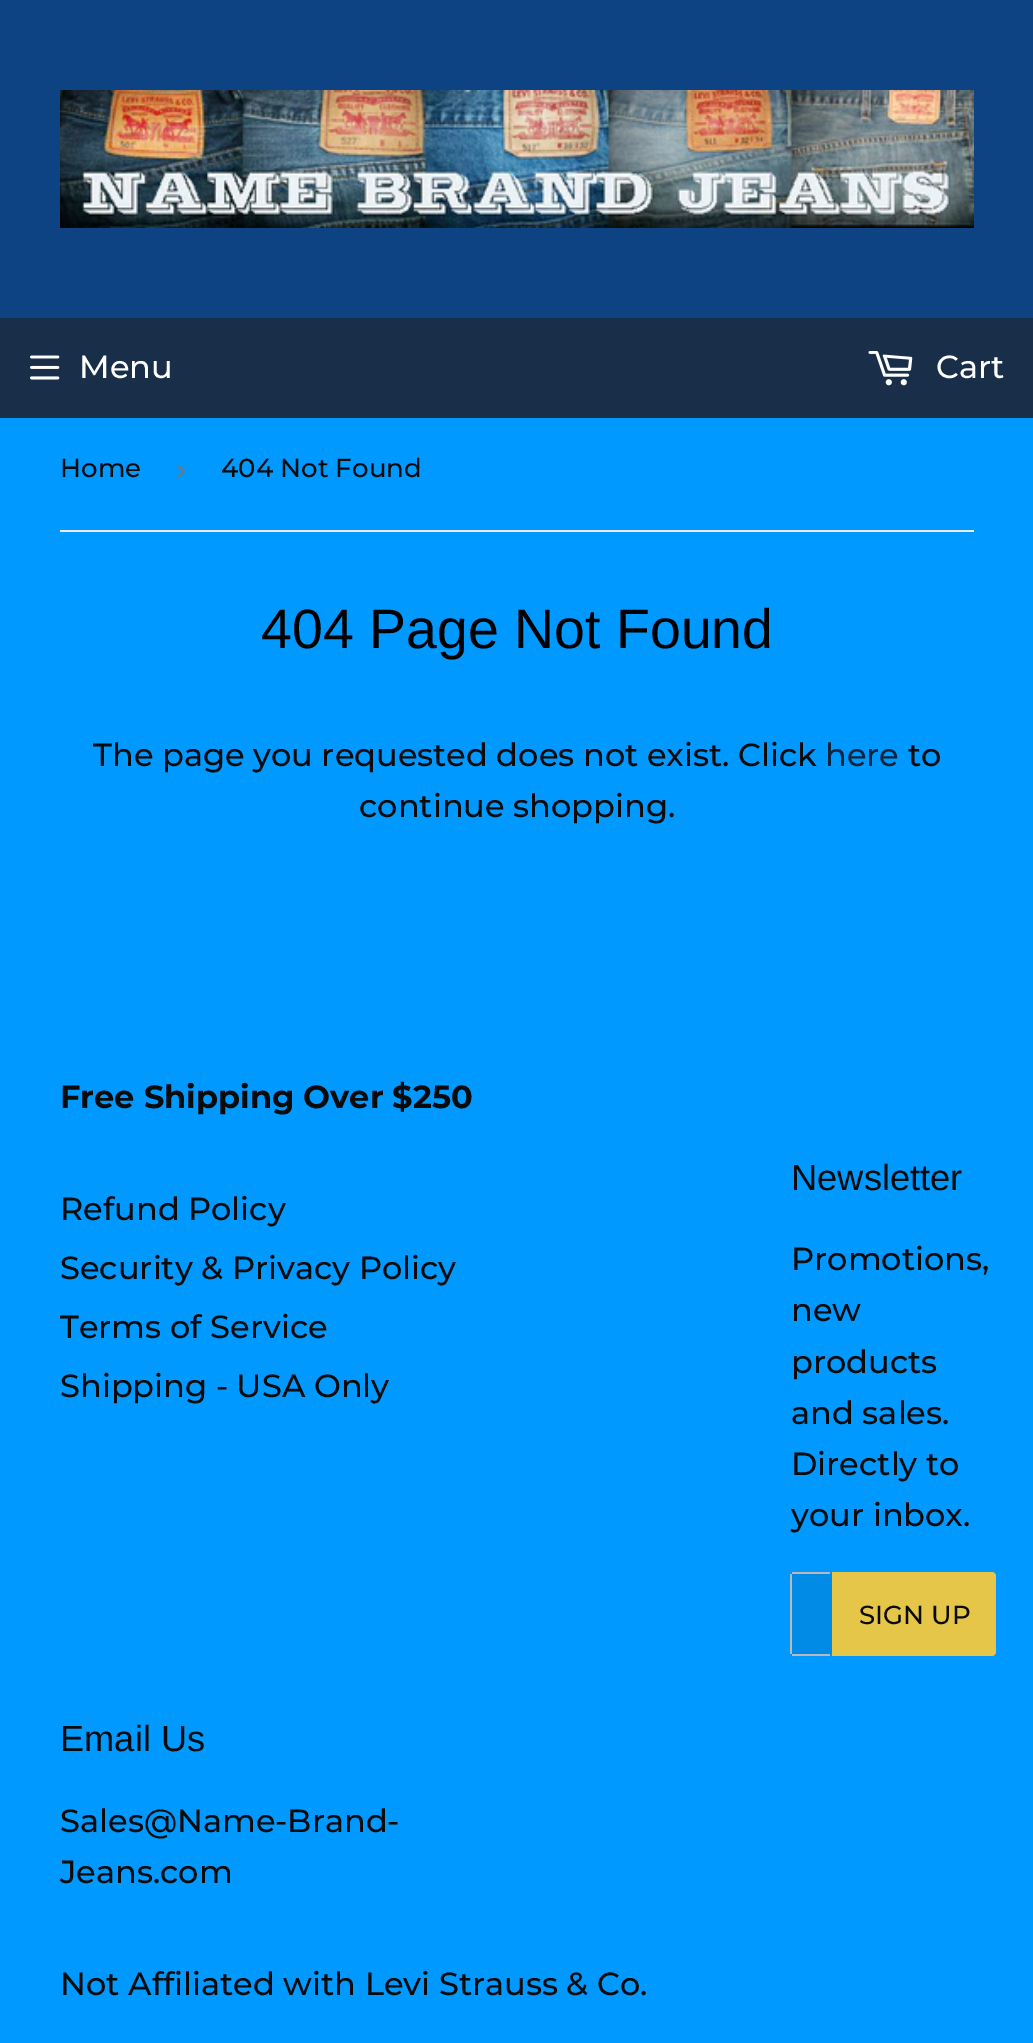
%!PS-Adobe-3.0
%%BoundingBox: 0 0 1033 2043
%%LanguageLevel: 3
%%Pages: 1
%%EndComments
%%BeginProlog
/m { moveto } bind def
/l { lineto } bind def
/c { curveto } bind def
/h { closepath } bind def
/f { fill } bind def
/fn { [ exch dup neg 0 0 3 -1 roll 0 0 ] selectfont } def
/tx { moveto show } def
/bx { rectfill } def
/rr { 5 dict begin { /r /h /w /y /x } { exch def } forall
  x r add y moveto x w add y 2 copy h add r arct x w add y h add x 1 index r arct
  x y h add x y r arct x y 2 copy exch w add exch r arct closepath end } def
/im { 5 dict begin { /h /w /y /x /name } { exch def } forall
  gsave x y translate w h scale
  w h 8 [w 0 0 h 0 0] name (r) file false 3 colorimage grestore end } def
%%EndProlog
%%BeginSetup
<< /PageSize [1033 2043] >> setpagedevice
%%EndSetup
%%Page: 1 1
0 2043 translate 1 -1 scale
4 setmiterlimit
0 0.6 1 setrgbcolor
0 0 1033 2043 bx
0.051 0.263 0.514 setrgbcolor
0 0 1033 318 bx
(image0.raw) 60 90 914 138 im
0.094 0.18 0.286 setrgbcolor
0 318 1033 100 bx
(image1.raw) 30 355 30 25 im
/Montserrat-Medium 32 fn
1 setgray
(Menu) 79 378 tx
(image2.raw) 868 351 45 35 im
(Cart) 936 378 tx
0.925 setgray
60 530 914 2 bx
/Montserrat-Medium 26 fn
0.043 0.043 0.047 setrgbcolor
(Home) 60 477 tx
/LiberationSans-Regular 30 fn
0.463 setgray
(›) 176 479 tx
/Montserrat-Medium 26 fn
0.043 0.043 0.047 setrgbcolor
(404 Not Found) 221 477 tx
/Arimo-Regular 55.5 fn
0 setgray
(404 Page Not Found) 261 648 tx
/Montserrat-Medium 32 fn
0.043 0.043 0.047 setrgbcolor
(The page you requested does not exist. Click) 93 766 tx
0.059 0.141 0.239 setrgbcolor
(here) 825 766 tx
0.043 0.043 0.047 setrgbcolor
(to) 908 766 tx
(continue shopping.) 359 817 tx
/Montserrat-Bold 32 fn
(Free Shipping Over $250) 60 1108 tx
/Montserrat-Medium 32 fn
(Refund Policy) 60 1220 tx
(Security & Privacy Policy) 60 1279 tx
(Terms of Service) 60 1338 tx
(Shipping - USA Only) 60 1397 tx
/Arimo-Regular 36.25 fn
(Newsletter) 791 1190 tx
/Montserrat-Medium 32 fn
(Promotions,) 791 1270 tx
(new) 791 1321 tx
(products) 791 1373 tx
(and sales.) 791 1424 tx
(Directly to) 791 1475 tx
(your inbox.) 791 1526 tx
0.004 0.545 0.902 setrgbcolor
790 1572 42 84 4 rr f
0.725 setgray
792 1572 38 2 bx
792 1654 38 2 bx
790 1574 2 80 bx
0.898 0.776 0.286 setrgbcolor
832 1572 m 992 1572 l 994 1572 996 1574 996 1576 c 996 1652 l 996 1654 994 1656 992 1656 c 832 1656 l h f
/Montserrat-Medium 26 fn
0.043 0.043 0.047 setrgbcolor
(SIGN UP) 859 1624 tx
/Arimo-Regular 36.25 fn
(Email Us) 60 1751 tx
/Montserrat-Medium 32 fn
(Sales@Name-Brand-) 60 1832 tx
(Jeans.com) 60 1883 tx
(Not Affiliated with Levi Strauss & Co.) 60 1995 tx
showpage
%%EOF
